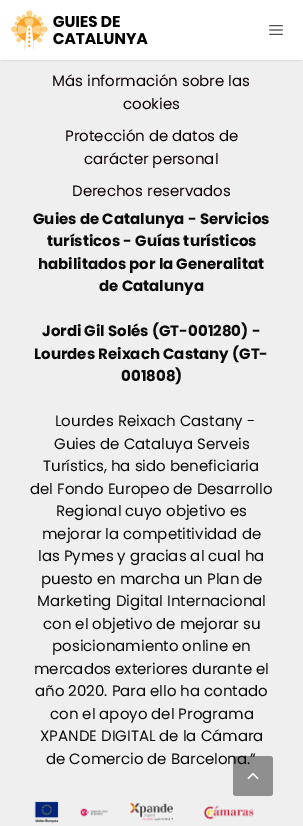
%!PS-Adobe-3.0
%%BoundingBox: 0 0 303 826
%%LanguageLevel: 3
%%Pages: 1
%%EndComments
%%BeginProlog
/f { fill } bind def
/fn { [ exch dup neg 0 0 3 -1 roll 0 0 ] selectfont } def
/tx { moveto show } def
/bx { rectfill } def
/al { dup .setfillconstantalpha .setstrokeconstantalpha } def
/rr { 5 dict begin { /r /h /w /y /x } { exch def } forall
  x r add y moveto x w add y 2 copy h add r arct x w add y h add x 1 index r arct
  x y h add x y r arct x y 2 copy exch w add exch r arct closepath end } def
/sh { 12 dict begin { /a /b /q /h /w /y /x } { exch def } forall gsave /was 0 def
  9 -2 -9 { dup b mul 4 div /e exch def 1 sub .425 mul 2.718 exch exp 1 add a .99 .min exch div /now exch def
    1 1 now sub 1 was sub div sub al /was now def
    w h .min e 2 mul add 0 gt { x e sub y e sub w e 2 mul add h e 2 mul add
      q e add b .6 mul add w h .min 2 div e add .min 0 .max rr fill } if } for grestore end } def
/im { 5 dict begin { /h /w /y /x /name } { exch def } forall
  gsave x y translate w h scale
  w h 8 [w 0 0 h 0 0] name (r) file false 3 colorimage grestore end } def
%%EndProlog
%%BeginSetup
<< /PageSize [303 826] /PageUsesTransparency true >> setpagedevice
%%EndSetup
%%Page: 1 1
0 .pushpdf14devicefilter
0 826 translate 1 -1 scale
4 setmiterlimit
0.937 setgray
0 0 303 826 bx
0 setgray
2 4 299 56 0 1 0.2 sh
1 setgray
0 0 303 60 bx
(image0.raw) 11 10 137 40 im
(image1.raw) 269 25 14 10 im
/Poppins-Regular 15 fn
0.039 0 0 setrgbcolor
(Más información sobre las) 52 86 tx
(cookies) 123 109 tx
(Protección de datos de) 65 141 tx
(carácter personal) 84 164 tx
(Derechos reservados) 72 196 tx
/Poppins-Bold 15 fn
0.039 setgray
(Guies de Catalunya - Servicios) 33 224 tx
(turísticos - Guías turísticos) 47 246 tx
(habilitados por la Generalitat) 38 269 tx
(de Catalunya) 99 291 tx
(Jordi Gil Solés \(GT-001280\) -) 42 336 tx
(Lourdes Reixach Castany \(GT-) 34 359 tx
(001808\)) 121 381 tx
/Poppins-Regular 15 fn
(Lourdes Reixach Castany -) 55 426 tx
(Guies de Cataluya Serveis) 54 449 tx
(Turístics, ha sido beneficiaria) 43 471 tx
(del Fondo Europeo de Desarrollo) 30 494 tx
(Regional cuyo objetivo es) 56 516 tx
(mejorar la competitividad de) 42 539 tx
(las Pymes y gracias al cual ha) 38 561 tx
(puesto en marcha un Plan de) 41 584 tx
(Marketing Digital Internacional) 37 606 tx
(con el objetivo de mejorar su) 43 629 tx
(posicionamiento online en) 52 651 tx
(mercados exteriores durante el) 34 674 tx
(año 2020. Para ello ha contado) 35 696 tx
(con el apoyo del Programa) 50 719 tx
(XPANDE DIGITAL de la Cámara) 40 741 tx
(de Comercio de Barcelona.”) 46 764 tx
(image2.raw) 34 801 220 22 im
0.4 al
0 setgray
233 756 40 40 3 rr f
1 al
(image3.raw) 247 772 12 8 im
.poppdf14devicefilter showpage
%%EOF
